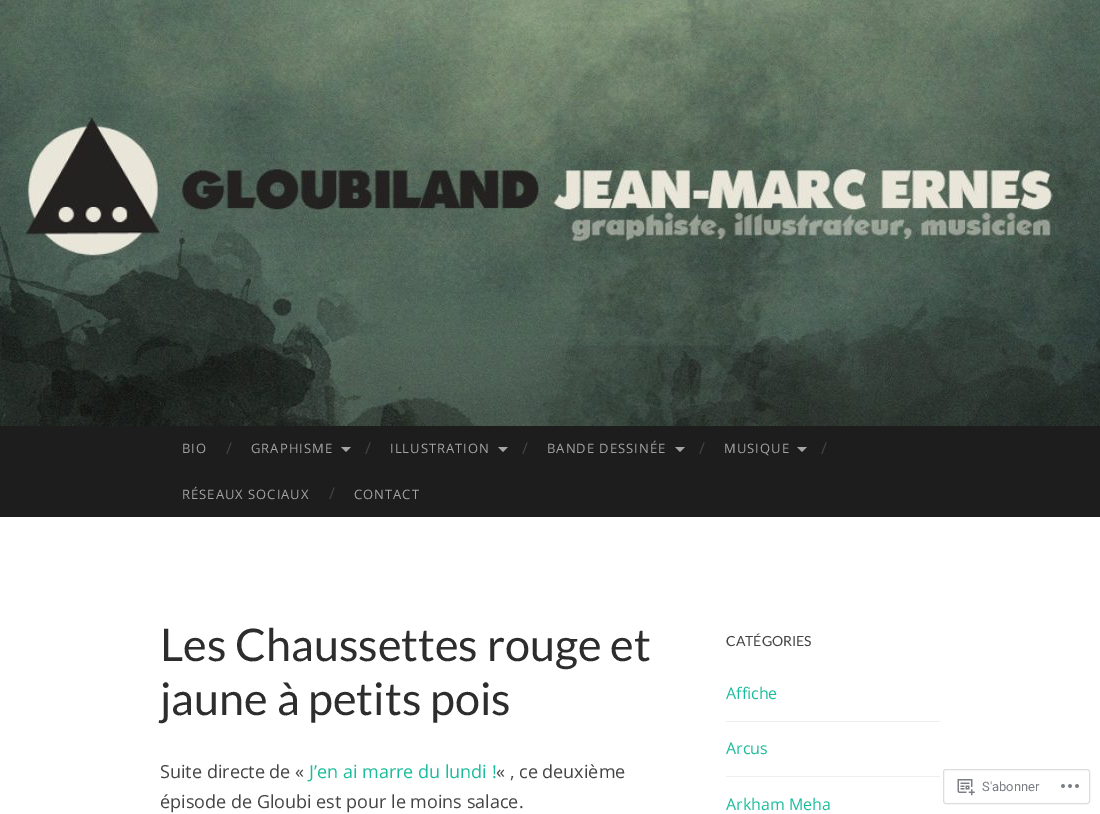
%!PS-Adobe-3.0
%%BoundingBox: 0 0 1100 814
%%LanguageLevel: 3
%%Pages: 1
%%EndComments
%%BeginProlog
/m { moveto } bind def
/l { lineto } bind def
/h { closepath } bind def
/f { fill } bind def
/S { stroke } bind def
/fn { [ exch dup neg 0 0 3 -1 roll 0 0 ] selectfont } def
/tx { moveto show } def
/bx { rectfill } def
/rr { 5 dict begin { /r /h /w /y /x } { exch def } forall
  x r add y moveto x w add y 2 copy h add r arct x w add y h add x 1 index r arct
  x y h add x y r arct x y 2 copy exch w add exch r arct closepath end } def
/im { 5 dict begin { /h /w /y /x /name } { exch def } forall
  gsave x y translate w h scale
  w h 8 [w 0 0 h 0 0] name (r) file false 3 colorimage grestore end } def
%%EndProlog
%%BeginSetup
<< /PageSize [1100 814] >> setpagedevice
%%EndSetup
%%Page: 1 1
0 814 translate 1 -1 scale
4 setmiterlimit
1 setgray
0 0 1100 814 bx
(image0.raw) 0 0 1100 426 im
0.114 setgray
0 426 1100 91 bx
/OpenSans-Regular 13 fn
0.647 setgray
182 453 m 1 0 (BIO) ashow
/OpenSans-Regular 16 fn
0.267 setgray
(/) 226 454 tx
/OpenSans-Regular 13 fn
0.647 setgray
251 453 m 1 0 (GRAPHISME) ashow
341 447 m 351 447 l 346 452 l h f
/OpenSans-Regular 16 fn
0.267 setgray
(/) 365 454 tx
/OpenSans-Regular 13 fn
0.647 setgray
390 453 m 1 0 (ILLUSTRATION) ashow
498 447 m 508 447 l 503 452 l h f
/OpenSans-Regular 16 fn
0.267 setgray
(/) 522 454 tx
/OpenSans-Regular 13 fn
0.647 setgray
547 453 m 1 0 (BANDE DESSINÉE) ashow
675 447 m 685 447 l 680 452 l h f
/OpenSans-Regular 16 fn
0.267 setgray
(/) 699 454 tx
/OpenSans-Regular 13 fn
0.647 setgray
724 453 m 1 0 (MUSIQUE) ashow
797 447 m 807 447 l 802 452 l h f
/OpenSans-Regular 16 fn
0.267 setgray
(/) 821 454 tx
/OpenSans-Regular 13 fn
0.647 setgray
182 499 m 1 0 (RÉSEAUX SOCIAUX) ashow
/OpenSans-Regular 16 fn
0.267 setgray
(/) 329 499 tx
/OpenSans-Regular 13 fn
0.647 setgray
354 499 m 1 0 (CONTACT) ashow
/Lato-Regular 45 fn
0.176 setgray
(Les Chaussettes rouge et) 160 661 tx
(jaune à petits pois) 160 715 tx
/OpenSans-Regular 18 fn
0.267 setgray
(Suite directe de «) 160 778 tx
0.102 0.737 0.612 setrgbcolor
(J’en ai marre du lundi !) 309 778 tx
0.267 setgray
(« , ce deuxième) 496 778 tx
(épisode de Gloubi est pour le moins salace.) 160 808 tx
/Lato-Regular 14 fn
(CATÉGORIES) 726 646 tx
/OpenSans-Regular 16 fn
0.102 0.737 0.612 setrgbcolor
(Affiche) 726 699 tx
0.933 setgray
726 721 214 1 bx
0.102 0.737 0.612 setrgbcolor
(Arcus) 726 754 tx
0.933 setgray
726 776 214 1 bx
0.102 0.737 0.612 setrgbcolor
(Arkham Meha) 726 810 tx
0.867 0.867 0.875 setrgbcolor
943.5 769.5 146 34 2.5 rr S
(image1.raw) 957 779 18 17 im
/Roboto-Regular 13 fn
0.482 0.498 0.522 setrgbcolor
(S'abonner) 982 791 tx
(image2.raw) 1061 784 18 4 im
showpage
%%EOF
